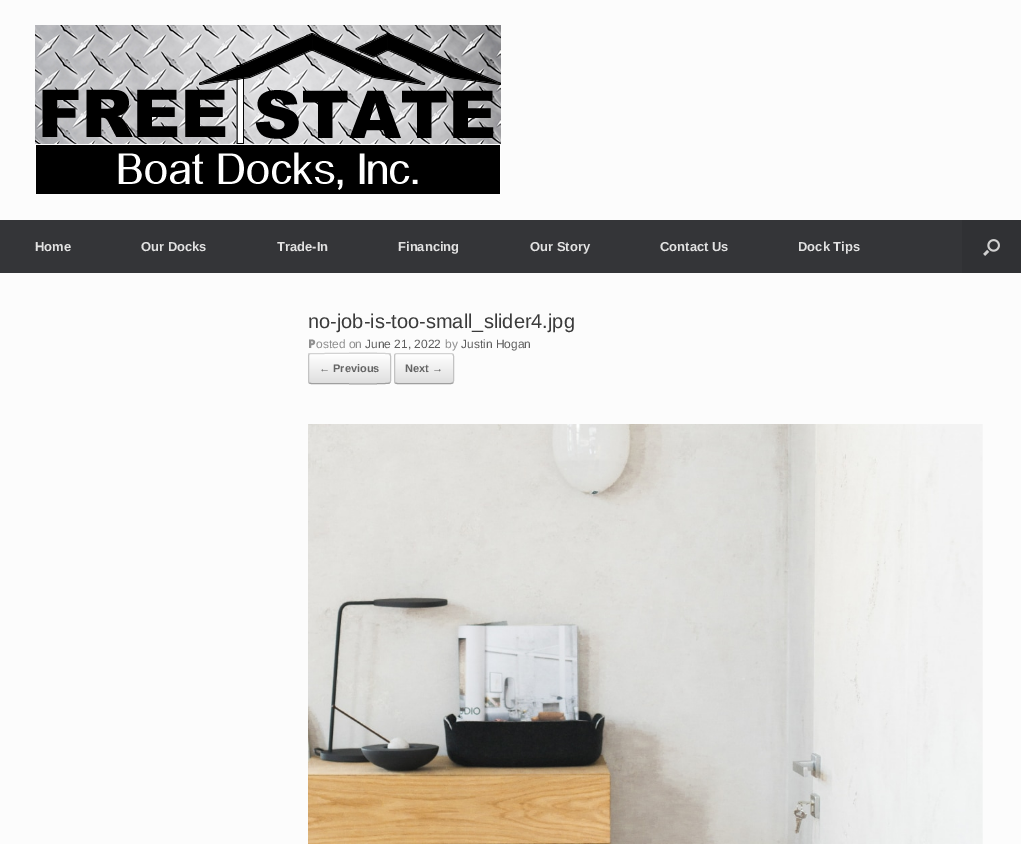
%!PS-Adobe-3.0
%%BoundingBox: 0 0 1021 844
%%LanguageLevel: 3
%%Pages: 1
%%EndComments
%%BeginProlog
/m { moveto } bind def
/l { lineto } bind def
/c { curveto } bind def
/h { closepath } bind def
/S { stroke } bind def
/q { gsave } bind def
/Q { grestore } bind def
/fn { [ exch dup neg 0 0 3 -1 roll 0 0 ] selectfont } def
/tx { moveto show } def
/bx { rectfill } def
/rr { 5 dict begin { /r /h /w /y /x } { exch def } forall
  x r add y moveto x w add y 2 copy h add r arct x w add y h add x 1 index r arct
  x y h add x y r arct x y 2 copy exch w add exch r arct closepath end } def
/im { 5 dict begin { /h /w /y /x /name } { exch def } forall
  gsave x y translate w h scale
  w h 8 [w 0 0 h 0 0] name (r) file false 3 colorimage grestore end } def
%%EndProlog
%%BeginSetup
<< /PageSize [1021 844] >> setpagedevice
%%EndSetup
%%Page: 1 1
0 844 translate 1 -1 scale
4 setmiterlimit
0.988 setgray
0 0 1021 844 bx
(image0.raw) 35 25 466 169 im
0.204 0.208 0.22 setrgbcolor
0 220 962 53 bx
/LiberationSans-Bold 13 fn
0.886 setgray
(Home) 35 251 tx
(Our Docks) 141 251 tx
(Trade-In) 277 251 tx
(Financing) 398 251 tx
(Our Story) 530 251 tx
(Contact Us) 660 251 tx
(Dock Tips) 798 251 tx
0.188 0.192 0.204 setrgbcolor
962 220 59 53 bx
(image1.raw) 983 239 17 17 im
/LiberationSans-Regular 20 fn
0.231 setgray
(no-job-is-too-small_slider4.jpg) 308 328 tx
/NotoSans-Black 12 fn
0.561 setgray
(P) 308 348 tx
/LiberationSans-Regular 12 fn
(osted on) 316 348 tx
0.369 setgray
(June 21, 2022) 365 348 tx
0.561 setgray
(by) 445 348 tx
0.369 setgray
(Justin Hogan) 461 348 tx
q
308 353 83 31 3 rr clip newpath
q 308 353 m 391 353 l 391 354 l 308 354 l h clip newpath
<< /ShadingType 2 /ColorSpace /DeviceRGB /Coords [309 354 309 325] /Extend [true true] /Function << /FunctionType 2 /Domain [0 1] /C0 [0.875 0.875 0.875] /C1 [1 1 1] /N 1 >> >> shfill Q
q 308 354 m 391 354 l 391 383 l 308 383 l h clip newpath
<< /ShadingType 2 /ColorSpace /DeviceRGB /Coords [309 383 309 354] /Extend [true true] /Function << /FunctionType 2 /Domain [0 1] /C0 [0.875 0.875 0.875] /C1 [1 1 1] /N 1 >> >> shfill Q
Q
0.824 setgray
309 354 m 311 353.5 l 324 353.5 l 331 353.5 387.5 352.5 389.5 354 c 390 354 l S
0.765 setgray
390 354 m 390 354.5 390.5 355.5 390.5 356 c 390.5 381 l 390.5 381.5 390 382.5 390 383 c S
0.624 setgray
390 383 m 389.5 383 l 387.5 384.5 331 383.5 324 383.5 c 311 383.5 l 309 383 l S
0.765 setgray
309 383 m 309 382.5 308.5 381.5 308.5 381 c 308.5 356 l 308.5 355.5 309 354.5 309 354 c S
/LiberationSans-Bold 11 fn
0.392 setgray
(← Previous) 319 372 tx
q
394 353 60 31 3 rr clip newpath
q 394 354 m 454 354 l 454 383 l 394 383 l h clip newpath
<< /ShadingType 2 /ColorSpace /DeviceRGB /Coords [395 383 395 354] /Extend [true true] /Function << /FunctionType 2 /Domain [0 1] /C0 [0.875 0.875 0.875] /C1 [1 1 1] /N 1 >> >> shfill Q
Q
0.824 setgray
395 354 m 397 353.5 l 451 353.5 l 453 354 l S
0.765 setgray
453 354 m 453 354.5 453.5 355.5 453.5 356 c 453.5 381 l 453.5 381.5 453 382.5 453 383 c S
0.624 setgray
453 383 m 451 383.5 l 397 383.5 l 395 383 l S
0.765 setgray
395 383 m 395 382.5 394.5 381.5 394.5 381 c 394.5 356 l 394.5 355.5 395 354.5 395 354 c S
0.392 setgray
(Next →) 405 372 tx
(image2.raw) 308 424 675 420 im
showpage
%%EOF
